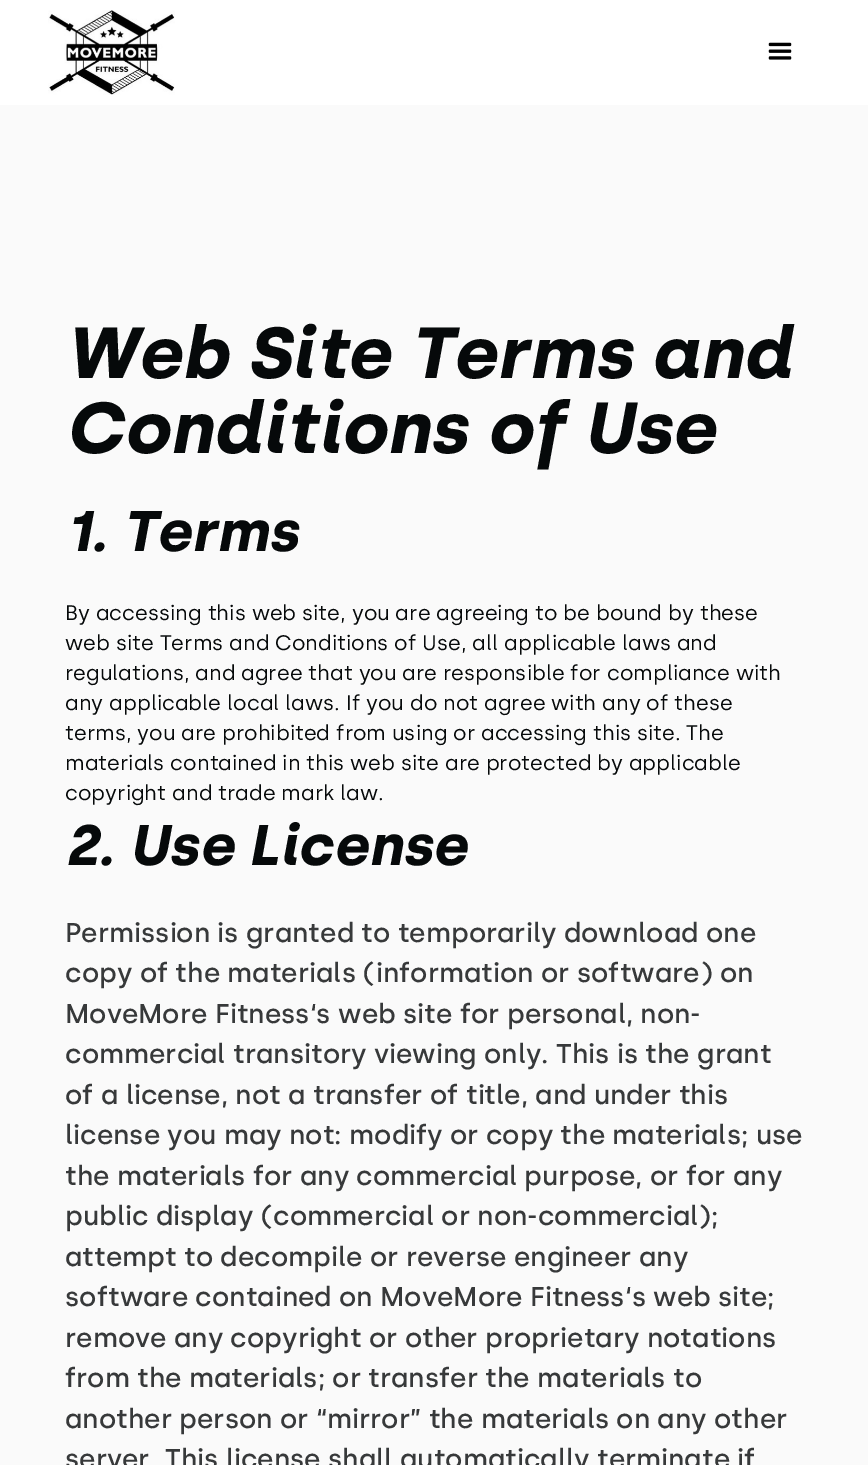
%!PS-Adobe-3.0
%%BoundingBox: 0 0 868 1465
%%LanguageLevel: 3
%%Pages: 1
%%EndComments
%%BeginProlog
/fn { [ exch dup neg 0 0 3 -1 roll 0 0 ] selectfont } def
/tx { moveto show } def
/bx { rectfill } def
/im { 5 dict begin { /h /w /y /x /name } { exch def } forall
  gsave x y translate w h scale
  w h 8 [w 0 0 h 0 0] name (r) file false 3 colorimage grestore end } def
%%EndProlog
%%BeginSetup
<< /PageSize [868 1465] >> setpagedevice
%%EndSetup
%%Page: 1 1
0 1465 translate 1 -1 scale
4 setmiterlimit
0.98 setgray
0 0 868 1465 bx
1 setgray
0 0 868 105 bx
(image0.raw) 48 10 127 85 im
(image1.raw) 768 42 24 18 im
/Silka-BoldItalic 72 fn
0.024 0.035 0.039 setrgbcolor
(Web Site Terms and) 65 378 tx
(Conditions of Use) 65 453 tx
/Silka-BoldItalic 57 fn
(1. Terms) 65 551 tx
/Silka-Regular 21 fn
(By accessing this web site, you are agreeing to be bound by these) 65 620 tx
(web site Terms and Conditions of Use, all applicable laws and) 65 650 tx
(regulations, and agree that you are responsible for compliance with) 65 680 tx
(any applicable local laws. If you do not agree with any of these) 65 710 tx
(terms, you are prohibited from using or accessing this site. The) 65 740 tx
(materials contained in this web site are protected by applicable) 65 770 tx
(copyright and trade mark law.) 65 800 tx
/Silka-BoldItalic 57 fn
(2. Use License) 65 865 tx
/Silka-Medium 27 fn
0.216 0.224 0.227 setrgbcolor
(Permission is granted to temporarily download one) 65 942 tx
(copy of the materials \(information or software\) on) 65 982 tx
(MoveMore Fitness‘s web site for personal, non-) 65 1023 tx
(commercial transitory viewing only. This is the grant) 65 1063 tx
(of a license, not a transfer of title, and under this) 65 1104 tx
(license you may not: modify or copy the materials; use) 65 1144 tx
(the materials for any commercial purpose, or for any) 65 1185 tx
(public display \(commercial or non-commercial\);) 65 1225 tx
(attempt to decompile or reverse engineer any) 65 1266 tx
(software contained on MoveMore Fitness‘s web site;) 65 1306 tx
(remove any copyright or other proprietary notations) 65 1347 tx
(from the materials; or transfer the materials to) 65 1387 tx
(another person or “mirror” the materials on any other) 65 1428 tx
(server) 65 1468 tx
(This license shall automatically terminate if) 165 1468 tx
showpage
%%EOF
